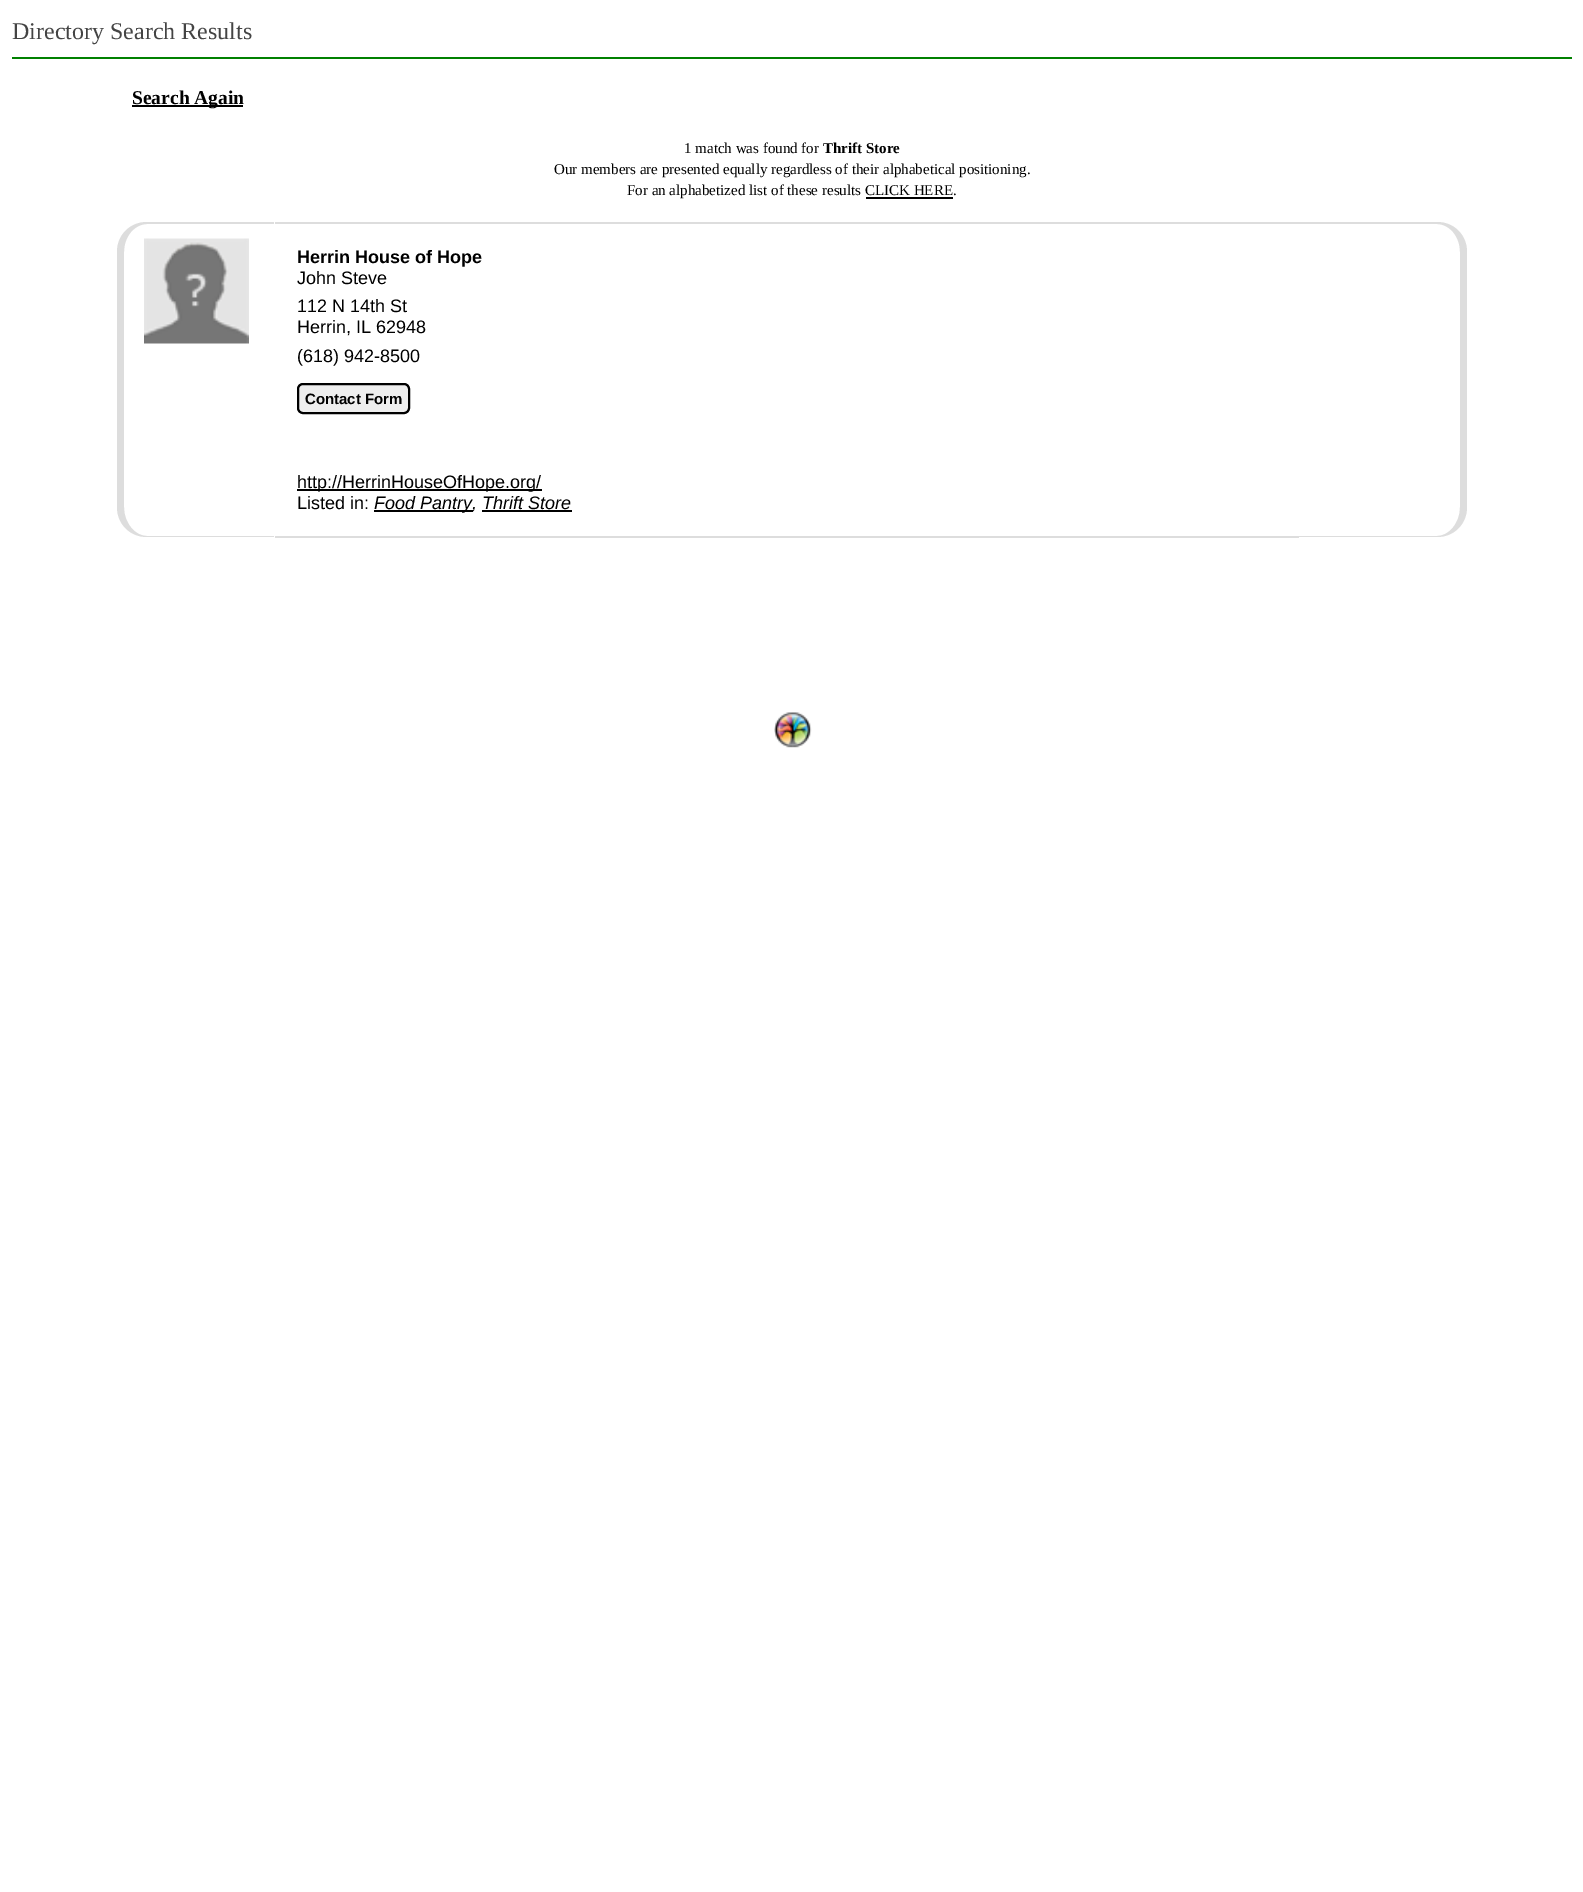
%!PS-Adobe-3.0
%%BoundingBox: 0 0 1583 1892
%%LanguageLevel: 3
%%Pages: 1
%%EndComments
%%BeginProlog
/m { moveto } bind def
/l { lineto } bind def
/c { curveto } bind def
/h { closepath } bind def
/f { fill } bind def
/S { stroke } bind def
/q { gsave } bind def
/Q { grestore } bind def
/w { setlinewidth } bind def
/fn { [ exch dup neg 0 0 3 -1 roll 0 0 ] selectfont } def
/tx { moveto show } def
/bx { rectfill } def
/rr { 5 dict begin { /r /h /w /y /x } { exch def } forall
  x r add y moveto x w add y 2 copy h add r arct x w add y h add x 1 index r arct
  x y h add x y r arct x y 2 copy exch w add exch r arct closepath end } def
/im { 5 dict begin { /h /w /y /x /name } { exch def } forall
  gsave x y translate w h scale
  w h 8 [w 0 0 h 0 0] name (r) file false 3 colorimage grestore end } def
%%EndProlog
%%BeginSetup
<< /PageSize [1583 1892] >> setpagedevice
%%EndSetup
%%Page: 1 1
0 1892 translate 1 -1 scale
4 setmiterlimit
1 setgray
0 0 1583 1892 bx
0 0.502 0 setrgbcolor
12 57 1560 2 bx
/LiberationSerif-Regular 24 fn
0.267 setgray
(Directory Search Results) 12 39 tx
0 setgray
132 105 111 2 bx
/LiberationSerif-Bold 19.5 fn
(Search Again) 132 104 tx
/LiberationSerif-Regular 15 fn
(1 match was found for) 684 153 tx
/LiberationSerif-Bold 15 fn
(Thrift Store) 823 153 tx
/LiberationSerif-Regular 15 fn
(Our members are presented equally regardless of their alphabetical positioning.) 554 174 tx
(For an alphabetized list of these results CLICK HERE.) 627 195 tx
866 197 87 2 bx
0.867 setgray
147 222 m 274 222 l 274 537 l 147 537 l 130 537 117 524 117 507 c 117 252 l 117 235 130 222 147 222 c h 147 224 m 274 224 l 274 536 l 147 536 l 135 536 124 523 124 507 c 124 252 l 124 236 135 224 147 224 c h eofill
(image0.raw) 144 238 105 106 im
275 222 1024 2 bx
275 536 1024 2 bx
/LiberationSans-Bold 18 fn
0 setgray
(Herrin House of Hope) 297 263 tx
/LiberationSans-Regular 18 fn
(John Steve) 297 284 tx
(112 N 14th St) 297 312 tx
(Herrin, IL 62948) 297 333 tx
(\(618\) 942-8500) 297 362 tx
0.933 setgray
298 384 111 29 5 rr q f Q
0 setgray
2 w
S
/LiberationSans-Bold 15 fn
(Contact Form) 305 404 tx
297 489 245 2 bx
/LiberationSans-Regular 18 fn
(http://HerrinHouseOfHope.org/) 297 488 tx
(Listed in:) 297 509 tx
374 510 99 2 bx
/LiberationSans-Italic 18 fn
(Food Pantry, Thrift Store) 374 509 tx
482 510 90 2 bx
0.867 setgray
1299 222 m 1437 222 l 1454 222 1467 235 1467 252 c 1467 507 l 1467 524 1454 537 1437 537 c 1299 537 l h 1299 224 m 1437 224 l 1449 224 1460 236 1460 252 c 1460 507 l 1460 523 1449 536 1437 536 c 1299 536 l h eofill
(image1.raw) 774 712 38 36 im
showpage
%%EOF
